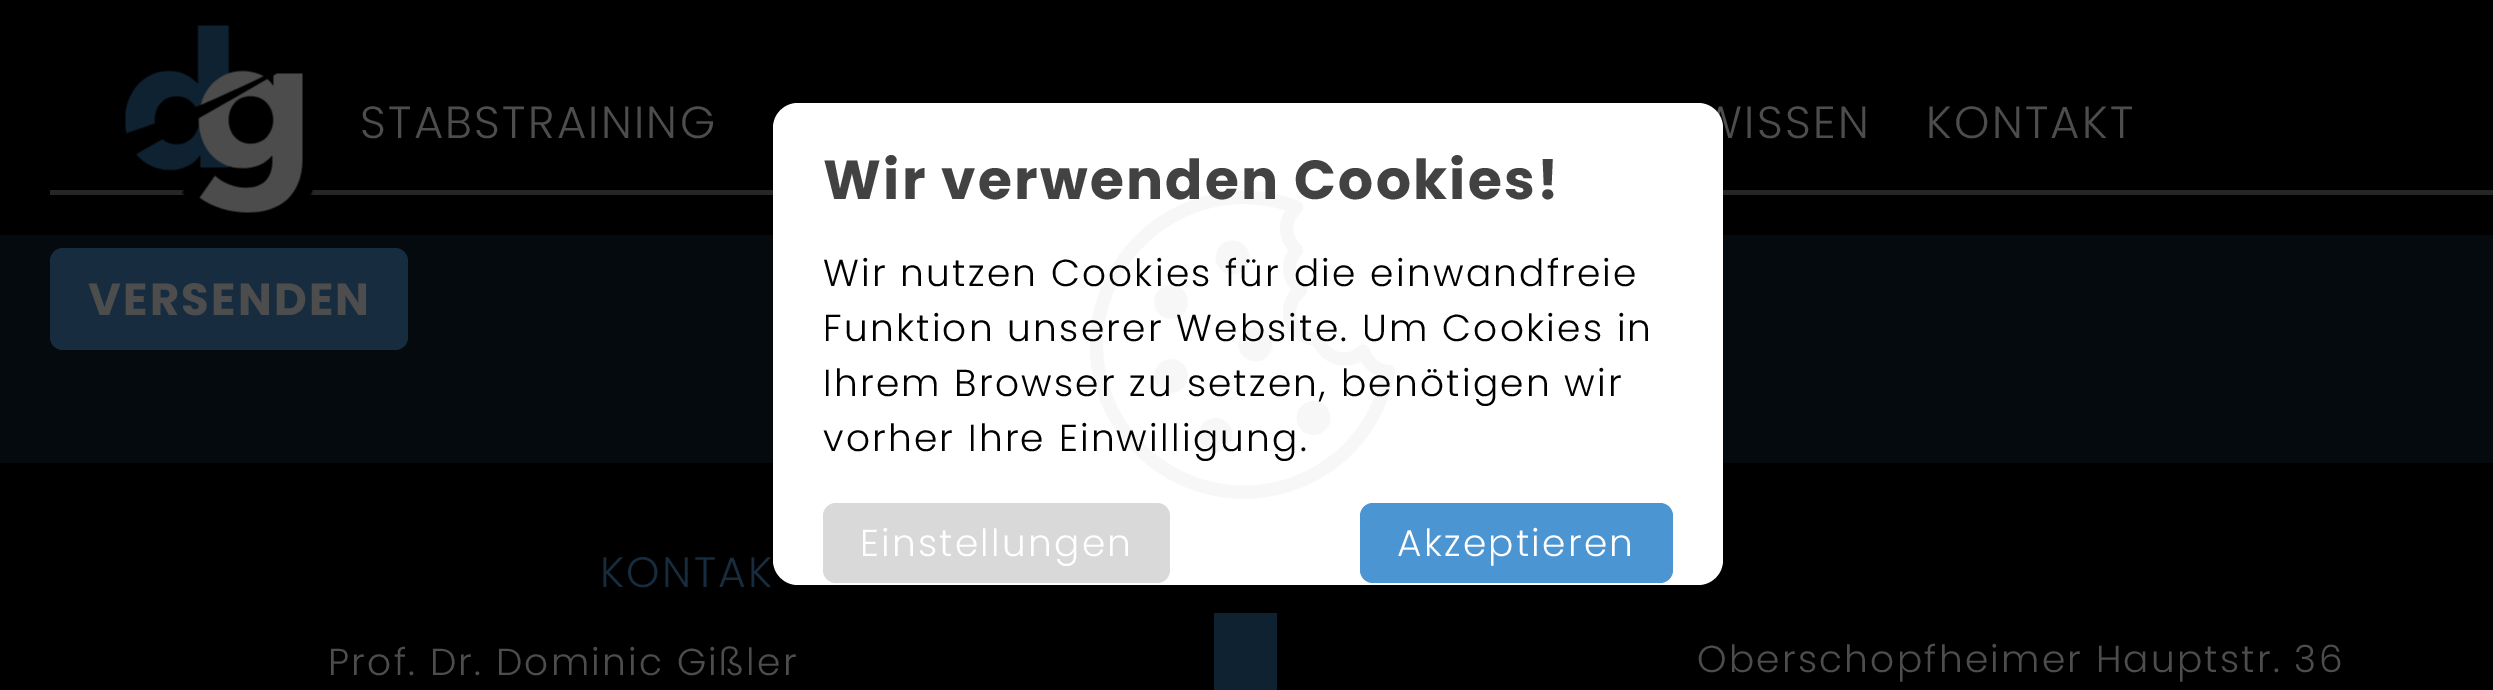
%!PS-Adobe-3.0
%%BoundingBox: 0 0 2493 690
%%LanguageLevel: 3
%%Pages: 1
%%EndComments
%%BeginProlog
/m { moveto } bind def
/f { fill } bind def
/fn { [ exch dup neg 0 0 3 -1 roll 0 0 ] selectfont } def
/bx { rectfill } def
/rr { 5 dict begin { /r /h /w /y /x } { exch def } forall
  x r add y moveto x w add y 2 copy h add r arct x w add y h add x 1 index r arct
  x y h add x y r arct x y 2 copy exch w add exch r arct closepath end } def
/im { 5 dict begin { /h /w /y /x /name } { exch def } forall
  gsave x y translate w h scale
  w h 8 [w 0 0 h 0 0] name (r) file false 3 colorimage grestore end } def
%%EndProlog
%%BeginSetup
<< /PageSize [2493 690] >> setpagedevice
%%EndSetup
%%Page: 1 1
0 690 translate 1 -1 scale
4 setmiterlimit
0.02 0.039 0.059 setrgbcolor
0 0 2493 690 bx
0 setgray
0 0 2493 235 bx
0.149 setgray
50 190 2443 5 bx
(image0.raw) 125 25 189 188 im
/Poppins-Light 45 fn
0.302 setgray
360 138 m 2.25 0 (STABSTRAINING) ashow
1699 138 m 2.25 0 (WISSEN) ashow
1926 138 m 2.25 0 (KONTAKT) ashow
0.09 0.176 0.247 setrgbcolor
50 248 358 102 13 rr f
/Poppins-Bold 45 fn
0.302 setgray
88 315 m 2.25 0 (VERSENDEN) ashow
0 setgray
0 463 2493 227 bx
1 setgray
773 103 950 482 25 rr f
(image1.raw) 1090 191 305 308 im
/Poppins-Bold 55 fn
0.259 setgray
823 199 m 2.25 0 (Wir verwenden Cookies!) ashow
/Poppins-Light 37.5 fn
0 setgray
823 286 m 2.25 0 (Wir nutzen Cookies für die einwandfreie) ashow
823 341 m 2.25 0 (Funktion unserer Website. Um Cookies in) ashow
823 396 m 2.25 0 (Ihrem Browser zu setzen, benötigen wir) ashow
823 451 m 2.25 0 (vorher Ihre Einwilligung.) ashow
0.851 setgray
823 503 347 80 13 rr f
1 setgray
860 556 m 2.25 0 (Einstellungen) ashow
0.298 0.584 0.827 setrgbcolor
1360 503 313 80 13 rr f
1 setgray
1397 556 m 2.25 0 (Akzeptieren) ashow
/Poppins-Light 42.5 fn
0.09 0.176 0.247 setrgbcolor
600 587 m 2.25 0 (KONTAK) ashow
/Poppins-Light 37.5 fn
0.302 setgray
328 675 m 2.25 0 (Prof. Dr. Dominic Gißler) ashow
0.059 0.133 0.196 setrgbcolor
1214 613 63 77 bx
0.302 setgray
1697 672 m 2.25 0 (Oberschopfheimer Hauptstr. 36) ashow
showpage
%%EOF
